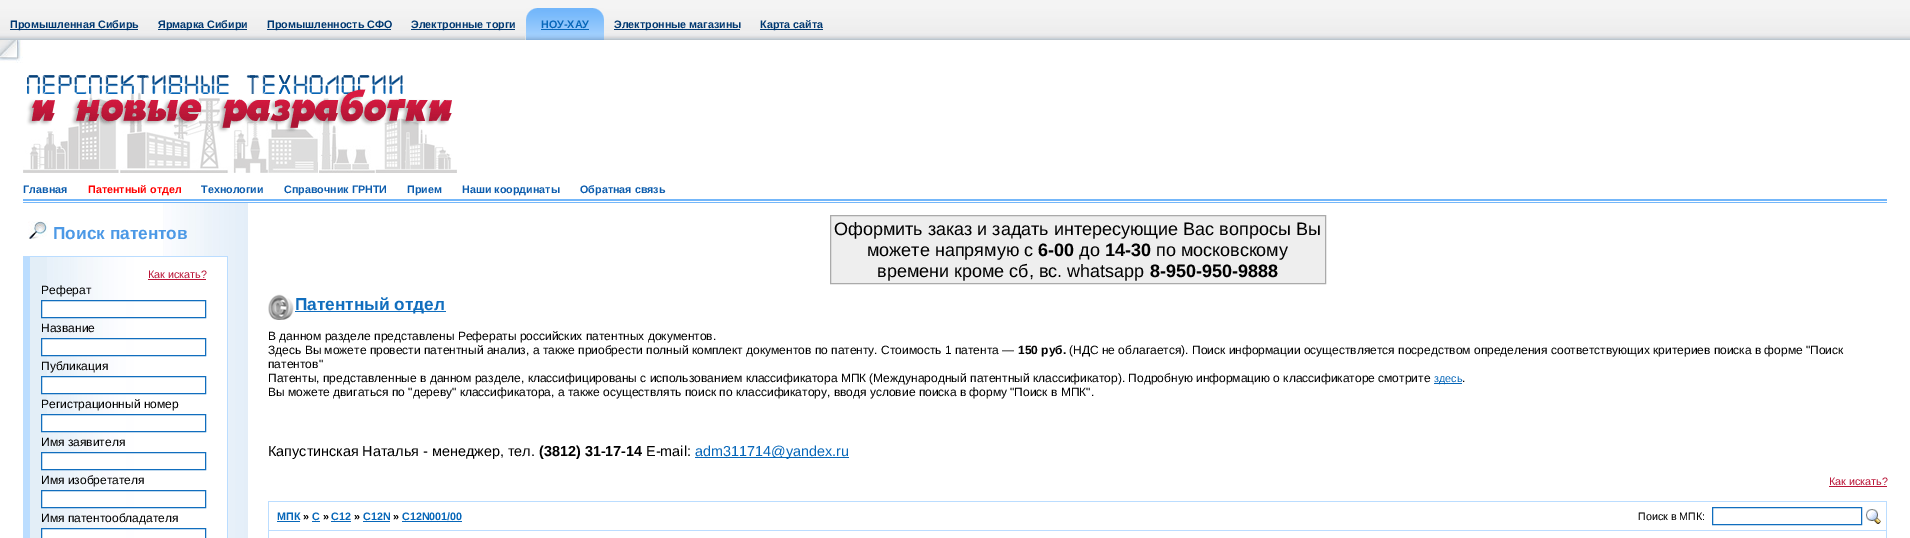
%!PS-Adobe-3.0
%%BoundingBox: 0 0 1910 538
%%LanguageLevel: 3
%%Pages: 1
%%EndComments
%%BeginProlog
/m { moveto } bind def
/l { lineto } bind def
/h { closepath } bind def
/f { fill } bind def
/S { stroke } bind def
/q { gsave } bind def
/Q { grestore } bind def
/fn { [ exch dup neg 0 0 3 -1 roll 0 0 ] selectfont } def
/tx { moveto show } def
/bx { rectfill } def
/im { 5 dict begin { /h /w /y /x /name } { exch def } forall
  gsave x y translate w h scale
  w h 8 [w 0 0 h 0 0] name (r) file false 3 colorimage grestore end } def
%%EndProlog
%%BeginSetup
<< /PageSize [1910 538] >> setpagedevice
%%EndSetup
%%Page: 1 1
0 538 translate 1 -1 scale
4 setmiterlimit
1 setgray
0 0 1910 538 bx
(image0.raw) 0 0 1910 40 im
0 0.22 0.443 setrgbcolor
10 29 128 1 bx
/LiberationSans-Bold 10.75 fn
(Промышленная Сибирь) 10 28 tx
158 29 89 1 bx
(Ярмарка Сибири) 158 28 tx
267 29 124 1 bx
(Промышленность СФО) 267 28 tx
411 29 104 1 bx
(Электронные торги) 411 28 tx
(image1.raw) 526 8 15 32 im
(image2.raw) 541 8 48 32 im
0.027 0.404 0.725 setrgbcolor
(НОУ-ХАУ) 541 28 tx
541 29 48 1 bx
(image3.raw) 589 8 15 32 im
0 0.22 0.443 setrgbcolor
614 29 126 1 bx
(Электронные магазины) 614 28 tx
760 29 63 1 bx
(Карта сайта) 760 28 tx
(image4.raw) 525 36 1 4 im
(image5.raw) 0 40 23 23 im
(image6.raw) 23 75 434 98 im
(image7.raw) 23 199 1864 4 im
0.043 0.361 0.678 setrgbcolor
(Главная) 23 193 tx
1 0 0 setrgbcolor
(Патентный отдел) 88 193 tx
0.043 0.361 0.678 setrgbcolor
(Технологии) 201 193 tx
(Справочник ГРНТИ) 284 193 tx
(Прием) 407 193 tx
(Наши координаты) 462 193 tx
(Обратная связь) 580 193 tx
(image8.raw) 163 203 85 335 im
(image9.raw) 28 221 20 18 im
/LiberationSans-Bold 17.25 fn
0.298 0.6 0.902 setrgbcolor
(Поиск патентов) 53 239 tx
0.733 0.867 1 setrgbcolor
23 256 205 282 bx
0.89 0.933 0.969 setrgbcolor
30 257 17 281 bx
(image10.raw) 47 257 180 281 im
/LiberationSans-Regular 10.75 fn
0.729 0.086 0.22 setrgbcolor
(Как искать?) 148 278 tx
148 279 58 1 bx
/LiberationSans-Regular 12 fn
0 setgray
(Реферат) 41 294 tx
1 setgray
42 301 84 16 bx
0.067 0.431 0.745 setrgbcolor
41.5 300.5 164 17 rectstroke
0 setgray
(Название) 41 332 tx
1 setgray
42 339 84 16 bx
0.067 0.431 0.745 setrgbcolor
41.5 338.5 164 17 rectstroke
0 setgray
(Публикация) 41 370 tx
1 setgray
42 377 84 16 bx
0.067 0.431 0.745 setrgbcolor
41.5 376.5 164 17 rectstroke
0 setgray
(Регистрационный номер) 41 408 tx
1 setgray
42 415 84 16 bx
0.067 0.431 0.745 setrgbcolor
41.5 414.5 164 17 rectstroke
0 setgray
(Имя заявителя) 41 446 tx
1 setgray
42 453 84 16 bx
0.067 0.431 0.745 setrgbcolor
41.5 452.5 164 17 rectstroke
0 setgray
(Имя изобретателя) 41 484 tx
1 setgray
42 491 84 16 bx
0.067 0.431 0.745 setrgbcolor
41.5 490.5 164 17 rectstroke
0 setgray
(Имя патентообладателя) 41 522 tx
1 setgray
42 529 84 9 bx
0.067 0.431 0.745 setrgbcolor
41.5 528.5 164 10 rectstroke
0.933 setgray
830.5 215.5 m 1325.5 215.5 l 1325.5 283.5 l 830.5 283.5 l h q f Q
0.667 setgray
S
/LiberationSans-Regular 18 fn
0 setgray
(Оформить заказ и задать интересующие Вас вопросы Вы) 834 235 tx
(можете напрямую c) 867 256 tx
/LiberationSans-Bold 18 fn
(6-00) 1038 256 tx
/LiberationSans-Regular 18 fn
(до) 1079 256 tx
/LiberationSans-Bold 18 fn
(14-30) 1105 256 tx
/LiberationSans-Regular 18 fn
(по московскому) 1156 256 tx
(времени кроме сб, вс. whatsapp) 877 277 tx
/LiberationSans-Bold 18 fn
(8-950-950-9888) 1150 277 tx
(image11.raw) 268 294 26 26 im
0.067 0.431 0.745 setrgbcolor
295 311 151 1 bx
/LiberationSans-Bold 17.25 fn
(Патентный отдел) 295 310 tx
/LiberationSans-Regular 12 fn
0 setgray
(В данном разделе представлены Рефераты российских патентных документов.) 268 340 tx
(Здесь Вы можете провести патентный анализ, а также приобрести полный комплект документов по патенту. Стоимость 1 патента —) 268 354 tx
/LiberationSans-Bold 12 fn
(150 руб.) 1018 354 tx
/LiberationSans-Regular 12 fn
(\(НДС не облагается\). Поиск информации осуществляется посредством определения соответствующих критериев поиска в форме "Поиск) 1069 354 tx
(патентов") 268 368 tx
(Патенты, представленные в данном разделе, классифицированы с использованием классификатора МПК \(Международный патентный классификатор\). Подробную информацию о классификаторе смотрите) 268 382 tx
0.027 0.404 0.725 setrgbcolor
1434 383 28 1 bx
/LiberationSans-Regular 10.75 fn
(здесь) 1434 382 tx
/LiberationSans-Regular 12 fn
0 setgray
(.) 1462 382 tx
(Вы можете двигаться по "дереву" классификатора, а также осуществлять поиск по классификатору, вводя условие поиска в форму "Поиск в МПК".) 268 396 tx
/LiberationSans-Regular 14.4 fn
(Капустинская Наталья - менеджер, тел.) 268 456 tx
/LiberationSans-Bold 14.4 fn
(\(3812\) 31-17-14) 539 456 tx
/LiberationSans-Regular 14.4 fn
(E-mail:) 646 456 tx
0.027 0.404 0.725 setrgbcolor
695 457 154 1 bx
(adm311714@yandex.ru) 695 456 tx
/LiberationSans-Regular 10.75 fn
0.729 0.086 0.22 setrgbcolor
(Как искать?) 1829 485 tx
1829 486 58 1 bx
0.733 0.867 1 setrgbcolor
268 501 1619 37 bx
1 setgray
269 502 1617 28 bx
/LiberationSans-Bold 10.75 fn
0.027 0.404 0.725 setrgbcolor
(МПК) 277 520 tx
277 521 23 1 bx
0 setgray
(») 303 520 tx
0.027 0.404 0.725 setrgbcolor
(C) 312 520 tx
312 521 8 1 bx
0 setgray
(») 323 520 tx
0.027 0.404 0.725 setrgbcolor
(C12) 331 520 tx
331 521 20 1 bx
0 setgray
(») 354 520 tx
0.027 0.404 0.725 setrgbcolor
(C12N) 363 520 tx
363 521 27 1 bx
0 setgray
(») 393 520 tx
0.027 0.404 0.725 setrgbcolor
(C12N001/00) 402 520 tx
402 521 60 1 bx
/LiberationSans-Regular 10.75 fn
0 setgray
(Поиск в МПК:) 1638 520 tx
0.067 0.431 0.745 setrgbcolor
1712.5 507.5 149 17 rectstroke
(image12.raw) 1866 509 15 15 im
1 setgray
269 531 1617 7 bx
showpage
%%EOF
